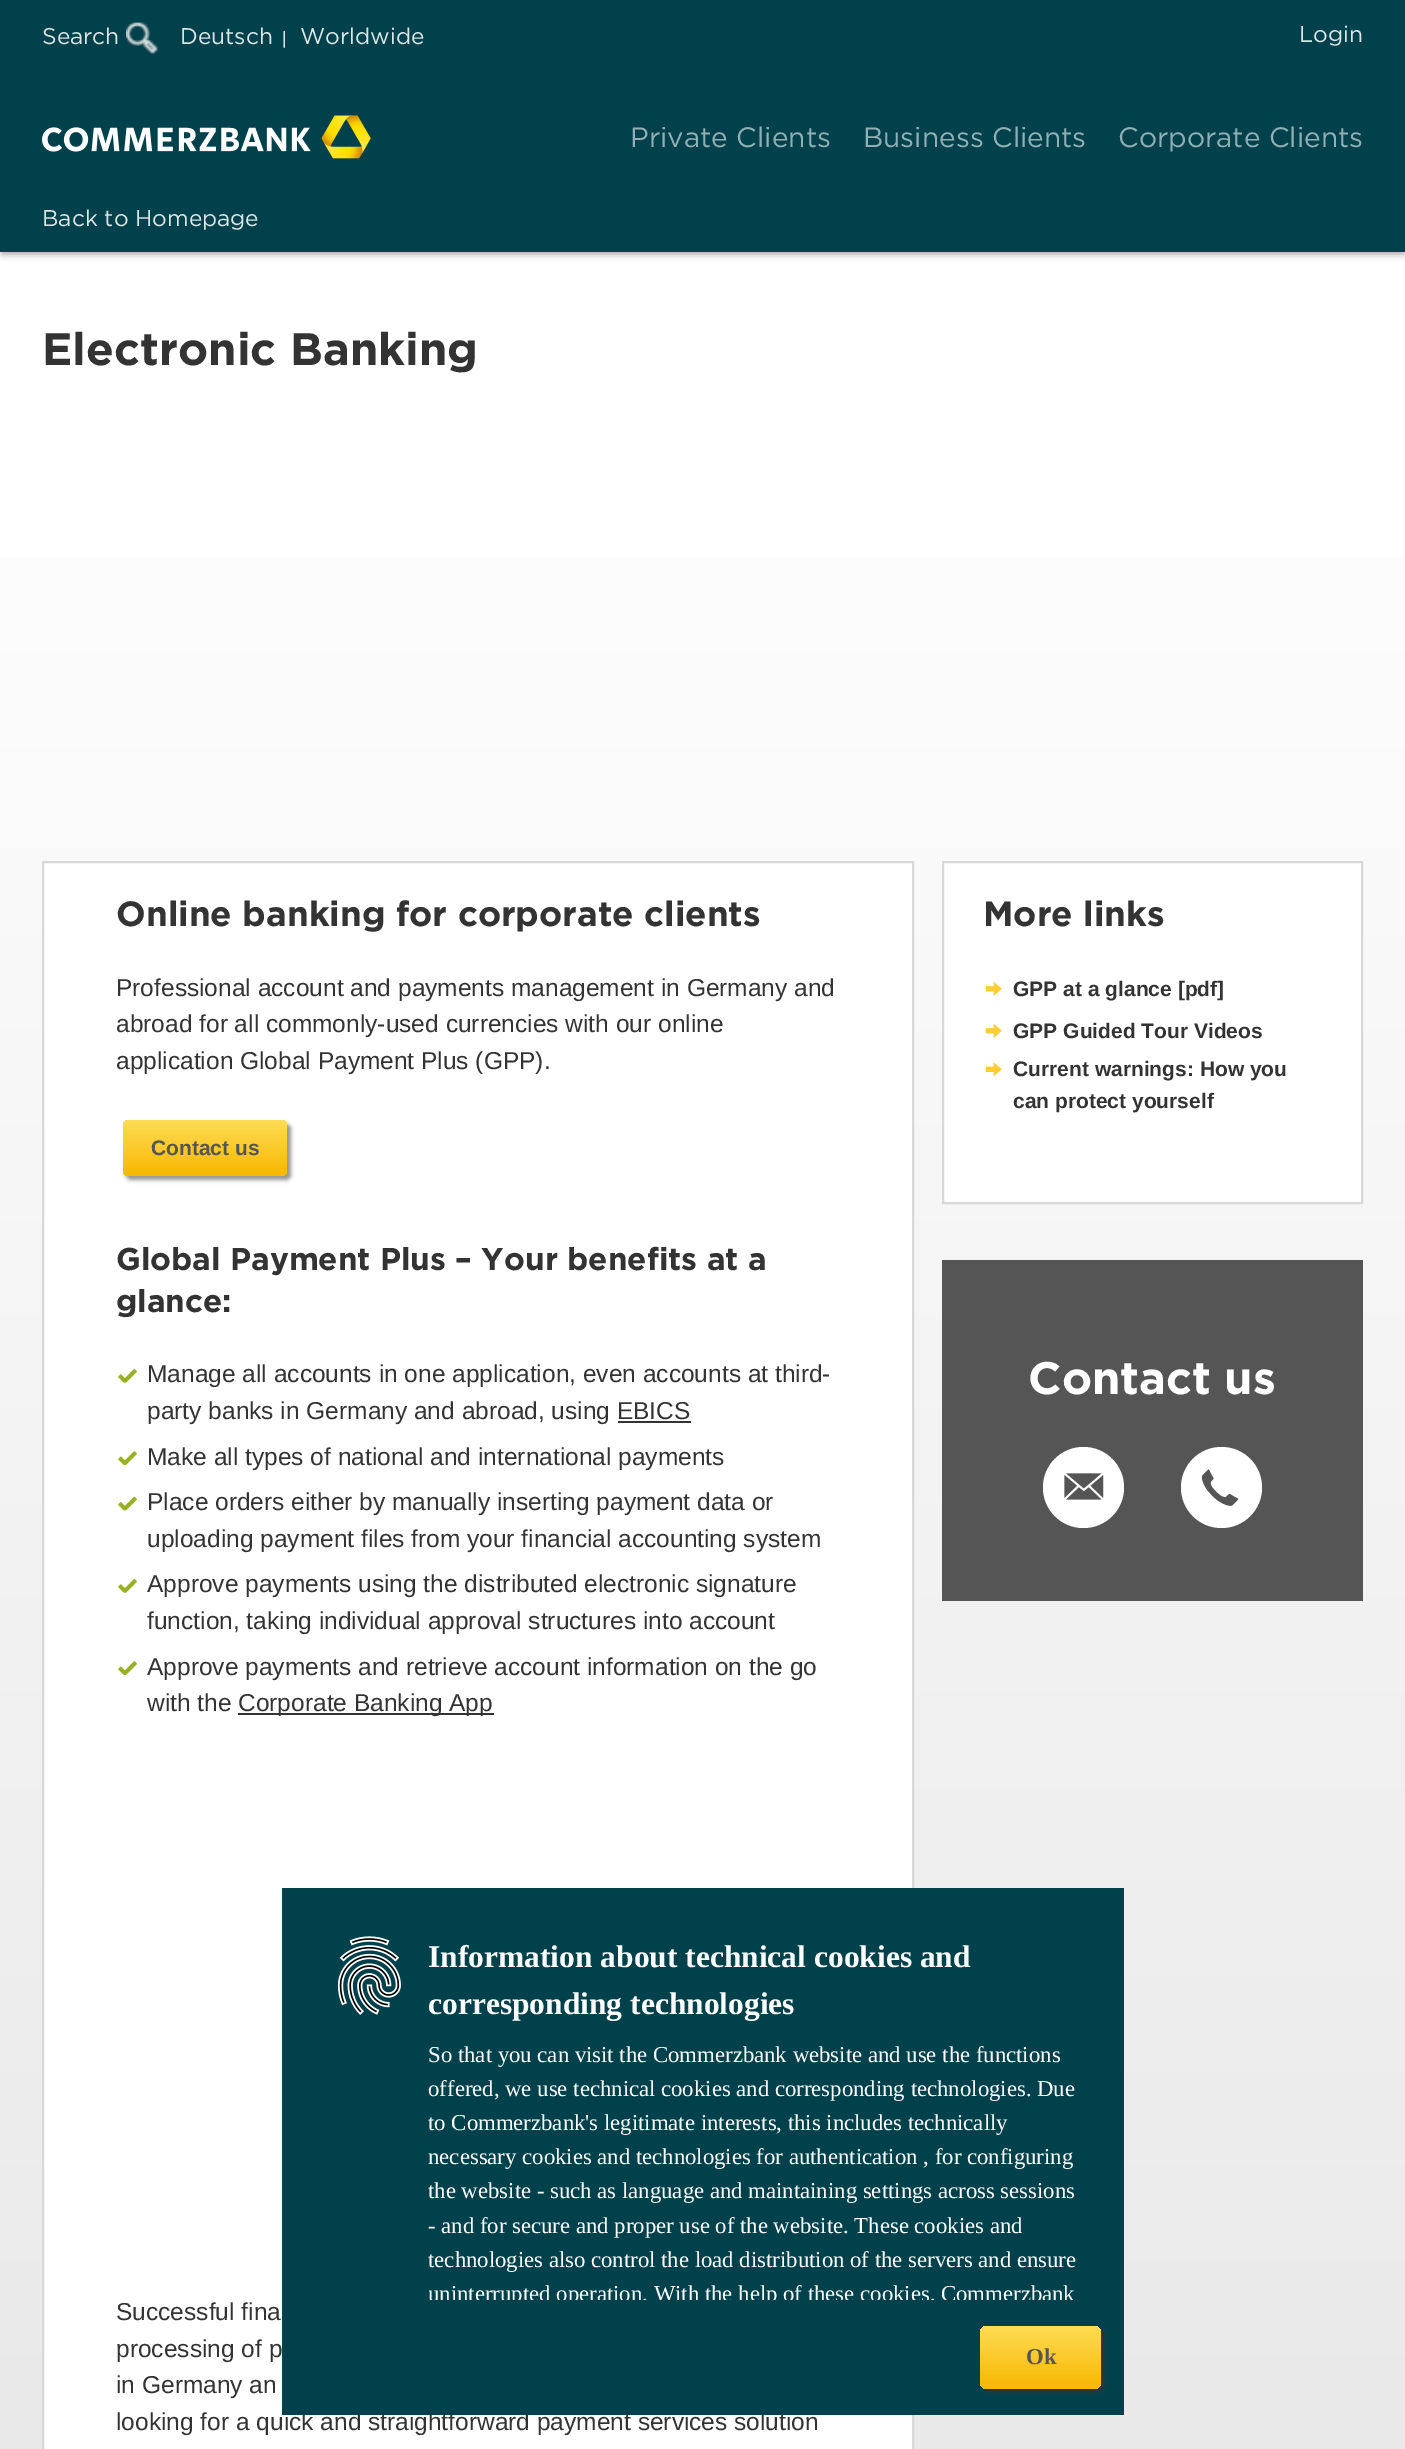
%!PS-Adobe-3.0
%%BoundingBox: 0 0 1405 2449
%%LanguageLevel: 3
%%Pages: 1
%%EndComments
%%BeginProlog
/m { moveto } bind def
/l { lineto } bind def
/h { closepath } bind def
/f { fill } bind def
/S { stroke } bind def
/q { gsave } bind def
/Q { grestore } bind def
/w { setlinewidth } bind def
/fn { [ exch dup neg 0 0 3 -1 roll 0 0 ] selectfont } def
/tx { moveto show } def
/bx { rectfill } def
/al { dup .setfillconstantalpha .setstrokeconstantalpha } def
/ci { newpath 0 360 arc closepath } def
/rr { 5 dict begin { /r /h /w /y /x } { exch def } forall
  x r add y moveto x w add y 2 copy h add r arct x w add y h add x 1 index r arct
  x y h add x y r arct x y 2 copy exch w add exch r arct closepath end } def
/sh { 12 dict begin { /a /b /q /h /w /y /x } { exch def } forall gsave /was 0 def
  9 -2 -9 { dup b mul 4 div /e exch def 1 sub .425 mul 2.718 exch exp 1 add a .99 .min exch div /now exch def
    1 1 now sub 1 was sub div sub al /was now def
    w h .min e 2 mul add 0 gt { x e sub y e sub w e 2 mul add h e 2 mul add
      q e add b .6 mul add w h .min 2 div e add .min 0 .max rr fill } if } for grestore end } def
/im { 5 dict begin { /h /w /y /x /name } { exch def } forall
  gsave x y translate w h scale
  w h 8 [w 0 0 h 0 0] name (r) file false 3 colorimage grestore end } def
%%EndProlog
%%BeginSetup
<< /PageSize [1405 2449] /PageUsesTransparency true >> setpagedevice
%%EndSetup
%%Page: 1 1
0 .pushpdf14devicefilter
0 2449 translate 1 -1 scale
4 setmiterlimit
1 setgray
0 0 1405 2449 bx
q 0 557 m 1405 557 l 1405 2449 l 0 2449 l h clip newpath
<< /ShadingType 2 /ColorSpace /DeviceRGB /Coords [703 308 703 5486] /Extend [true true] /Function << /FunctionType 3 /Domain [0 1] /Functions [<< /FunctionType 2 /Domain [0 1] /C0 [1 1 1] /C1 [0.898 0.898 0.898] /N 1 >> << /FunctionType 2 /Domain [0 1] /C0 [0.898 0.898 0.898] /C1 [1 1 1] /N 1 >>] /Bounds [0.5] /Encode [0 1 0 1] >> >> shfill Q
0 setgray
2 5 1402 249 0 3.5 0.36 sh
0 0.255 0.298 setrgbcolor
0 0 1405 252 bx
/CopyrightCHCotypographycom-Light 22.75 fn
0.863 0.902 0.902 setrgbcolor
(Search) 42 44 tx
(image0.raw) 126 22 32 32 im
(Deutsch) 180 44 tx
/LiberationSans-Regular 18 fn
(|) 282 44 tx
/CopyrightCHCotypographycom-Light 22.75 fn
(Worldwide) 300 44 tx
(Login) 1299 42 tx
(image1.raw) 42 115 329 44 im
/CopyrightCHCotypographycom-Light 28 fn
0.569 0.686 0.706 setrgbcolor
(Private Clients) 630 147 tx
(Business Clients) 863 147 tx
(Corporate Clients) 1118 147 tx
/CopyrightCHCotypographycom-Light 22.75 fn
0.863 0.902 0.902 setrgbcolor
(Back to Homepage) 42 226 tx
/CopyrightCHCotypographycom-Regular 45.5 fn
0.2 setgray
(Electronic Banking) 42 365 tx
1 setgray
43 862 m 913 862 l 913 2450 l 43 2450 l h q f Q
0.847 setgray
2 w
S
/CopyrightCHCotypographycom-Regular 35 fn
0.2 setgray
(Online banking for corporate clients) 116 926 tx
/LiberationSans-Regular 24.5 fn
(Professional account and payments management in Germany and) 116 996 tx
(abroad for all commonly-used currencies with our online) 116 1032 tx
(application Global Payment Plus \(GPP\).) 116 1069 tx
0.58 setgray
126 1124 165 56 5 2 1 sh
q 123 1120 164 56 5 rr clip newpath
<< /ShadingType 2 /ColorSpace /DeviceRGB /Coords [205 1120 205 1176] /Extend [true true] /Function << /FunctionType 2 /Domain [0 1] /C0 [0.996 0.863 0.333] /C1 [0.973 0.718 0] /N 1 >> >> shfill Q
/LiberationSans-Bold 21 fn
0.333 setgray
(Contact us) 151 1155 tx
/CopyrightCHCotypographycom-Regular 31.5 fn
0.2 setgray
(Global Payment Plus – Your benefits at a) 116 1270 tx
(glance:) 116 1312 tx
(image2.raw) 118 1369 19 14 im
/LiberationSans-Regular 24.5 fn
(Manage all accounts in one application, even accounts at third-) 147 1382 tx
(party banks in Germany and abroad, using EBICS) 147 1419 tx
618 1421 73 2 bx
(image3.raw) 118 1451 19 14 im
(Make all types of national and international payments) 147 1465 tx
(image4.raw) 118 1496 19 15 im
(Place orders either by manually inserting payment data or) 147 1510 tx
(uploading payment files from your financial accounting system) 147 1547 tx
(image2.raw) 118 1579 19 14 im
(Approve payments using the distributed electronic signature) 147 1592 tx
(function, taking individual approval structures into account) 147 1629 tx
(image3.raw) 118 1661 19 14 im
(Approve payments and retrieve account information on the go) 147 1675 tx
(with the) 147 1711 tx
238 1713 256 2 bx
(Corporate Banking App) 238 1711 tx
(Successful fina) 116 2320 tx
(processing of p) 116 2357 tx
(in Germany an) 116 2393 tx
(looking for a quick and straightforward payment services solution) 116 2430 tx
1 setgray
943 862 m 1362 862 l 1362 1203 l 943 1203 l h q f Q
0.847 setgray
S
/CopyrightCHCotypographycom-Regular 35 fn
0.2 setgray
(More links) 983 926 tx
(image5.raw) 985 981 17 15 im
/LiberationSans-Bold 21 fn
(GPP at a glance [pdf]) 1013 996 tx
(image5.raw) 985 1023 17 15 im
(GPP Guided Tour Videos) 1013 1038 tx
(image6.raw) 985 1062 17 15 im
(Current warnings: How you) 1013 1076 tx
(can protect yourself) 1013 1108 tx
0.333 setgray
942 1260 421 341 bx
/CopyrightCHCotypographycom-Regular 45.5 fn
1 setgray
(Contact us) 1028 1394 tx
1083.5 1487.5 40.5 ci f
(image7.raw) 1064 1473 40 27 im
1221.5 1487.5 40.5 ci f
(image8.raw) 1201 1469 38 37 im
0 0.255 0.298 setrgbcolor
282 1888 842 527 bx
(image9.raw) 337 1936 64 79 im
/LiberationSerif-Bold 31.5 fn
1 setgray
(Information about technical cookies and) 428 1967 tx
(corresponding technologies) 428 2014 tx
/LiberationSerif-Regular 22.75 fn
(So that you can visit the Commerzbank website and use the functions) 428 2062 tx
(offered, we use technical cookies and corresponding technologies. Due) 428 2096 tx
(to Commerzbank's legitimate interests, this includes technically) 428 2130 tx
(necessary cookies and technologies for authentication , for configuring) 428 2164 tx
(the website - such as language and maintaining settings across sessions) 428 2198 tx
(- and for secure and proper use of the website. These cookies and) 428 2233 tx
(technologies also control the load distribution of the servers and ensure) 428 2267 tx
q
429 2037 649 263 rectclip
(uninterrupted operation. With the help of these cookies, Commerzbank) 428 2301 tx
Q
0.204 setgray
984 2329 120 63 7 2 1 sh
q 980 2326 121 63 7 rr clip newpath
<< /ShadingType 2 /ColorSpace /DeviceRGB /Coords [1041 2326 1041 2389] /Extend [true true] /Function << /FunctionType 2 /Domain [0 1] /C0 [0.996 0.863 0.333] /C1 [0.973 0.718 0] /N 1 >> >> shfill Q
/LiberationSerif-Bold 22.75 fn
0.333 setgray
(Ok) 1026 2364 tx
.poppdf14devicefilter showpage
%%EOF
